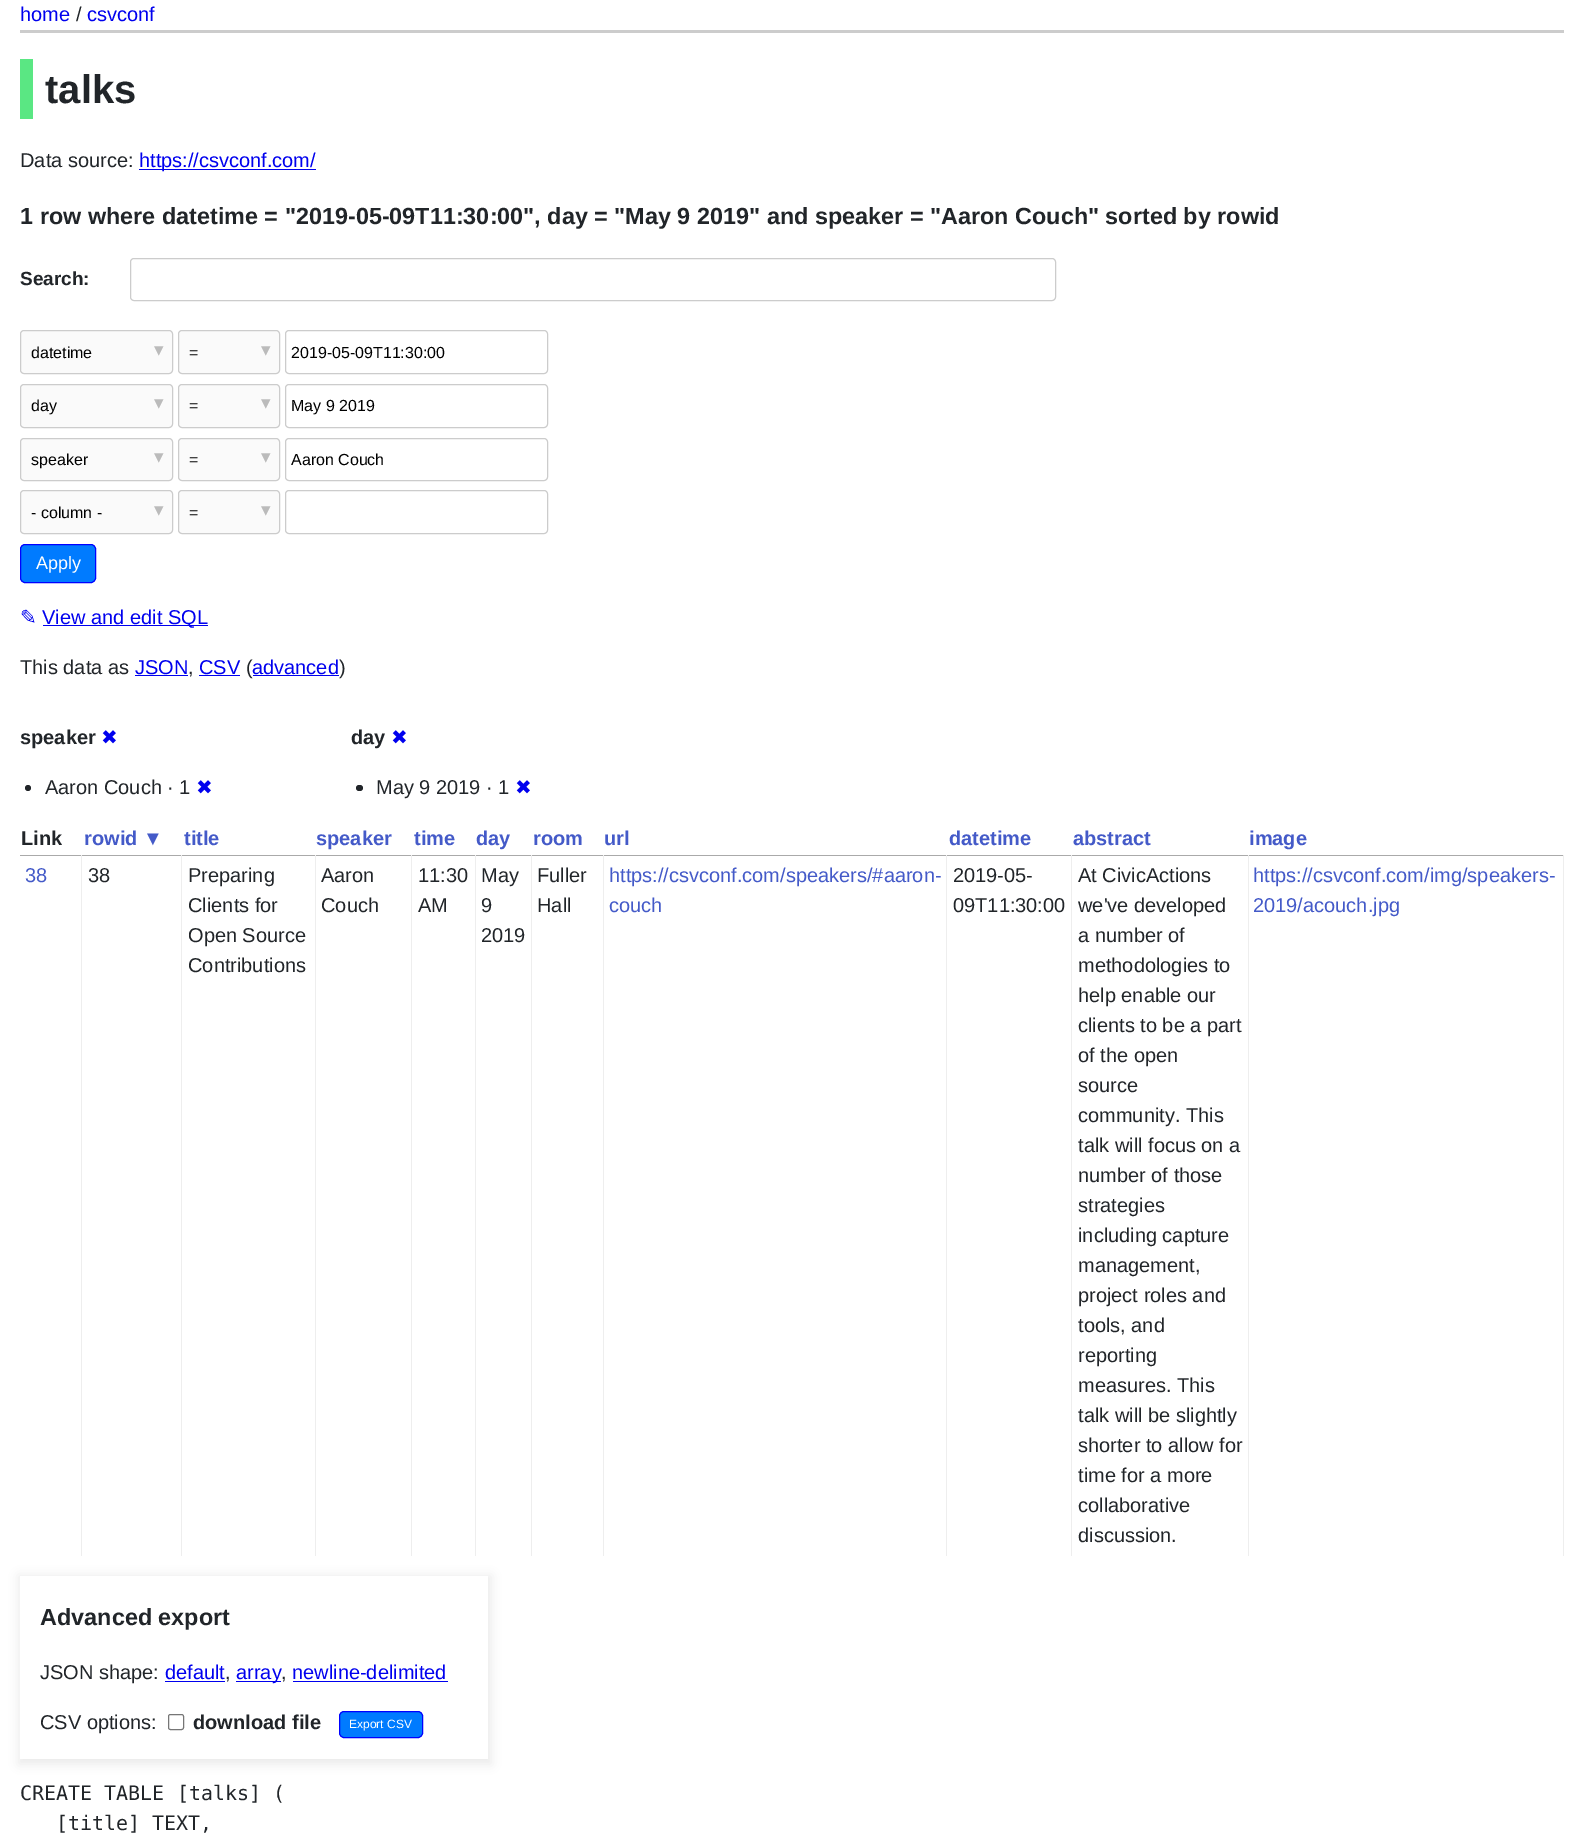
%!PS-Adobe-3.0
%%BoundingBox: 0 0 1583 1833
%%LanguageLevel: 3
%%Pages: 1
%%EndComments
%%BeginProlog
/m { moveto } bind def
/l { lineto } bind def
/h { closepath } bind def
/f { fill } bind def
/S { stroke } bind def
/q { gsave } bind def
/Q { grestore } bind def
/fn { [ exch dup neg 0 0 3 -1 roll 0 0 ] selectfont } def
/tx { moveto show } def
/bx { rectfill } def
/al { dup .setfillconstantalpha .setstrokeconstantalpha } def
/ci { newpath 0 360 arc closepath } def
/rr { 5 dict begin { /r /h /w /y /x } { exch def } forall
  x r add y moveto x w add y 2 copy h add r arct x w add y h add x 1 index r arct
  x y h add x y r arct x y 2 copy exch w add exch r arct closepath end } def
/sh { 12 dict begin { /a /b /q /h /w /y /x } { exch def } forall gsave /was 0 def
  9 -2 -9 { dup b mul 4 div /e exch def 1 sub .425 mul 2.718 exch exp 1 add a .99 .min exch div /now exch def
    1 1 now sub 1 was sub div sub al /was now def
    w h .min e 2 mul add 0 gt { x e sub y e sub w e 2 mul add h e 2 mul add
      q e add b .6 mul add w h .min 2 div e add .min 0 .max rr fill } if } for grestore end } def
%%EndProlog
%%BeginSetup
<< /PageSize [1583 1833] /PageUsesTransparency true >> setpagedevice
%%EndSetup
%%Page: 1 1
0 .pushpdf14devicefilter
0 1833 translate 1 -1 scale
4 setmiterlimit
1 setgray
0 0 1583 1833 bx
0.8 setgray
20 30 1544 3 bx
/LiberationSans-Regular 20 fn
0 0 0.933 setrgbcolor
(home) 20 21 tx
0.129 0.145 0.161 setrgbcolor
(/) 76 21 tx
0 0 0.933 setrgbcolor
(csvconf) 87 21 tx
0.353 0.906 0.514 setrgbcolor
20 59 13 60 bx
/LiberationSans-Bold 40 fn
0.129 0.145 0.161 setrgbcolor
(talks) 45 103 tx
/LiberationSans-Regular 20 fn
(Data source:) 20 167 tx
0 0 0.933 setrgbcolor
139 169 177 1 bx
(https://csvconf.com/) 139 167 tx
/LiberationSans-Bold 23.4 fn
0.129 0.145 0.161 setrgbcolor
(1 row where datetime = "2019-05-09T11:30:00", day = "May 9 2019" and speaker = "Aaron Couch" sorted by rowid) 20 224 tx
/LiberationSans-Bold 19 fn
(Search:) 20 285 tx
0.8 setgray
130.5 258.5 925 42 3.5 rr S
0.98 setgray
20.5 330.5 152 43 3.5 rr q f Q
0.8 setgray
S
/LiberationSans-Regular 16 fn
0 setgray
(datetime) 31 358 tx
/DejaVuSans-Regular 19 fn
0.733 setgray
(▾) 154 356 tx
0.98 setgray
178.5 330.5 101 43 3.5 rr q f Q
0.8 setgray
S
/LiberationSans-Regular 16 fn
0 setgray
(=) 189 358 tx
/DejaVuSans-Regular 19 fn
0.733 setgray
(▾) 261 356 tx
0.8 setgray
285.5 330.5 262 43 3.5 rr S
/LiberationSans-Regular 16 fn
0 setgray
(2019-05-09T11:30:00) 291 358 tx
0.98 setgray
20.5 384.5 152 43 3.5 rr q f Q
0.8 setgray
S
0 setgray
(day) 31 411 tx
/DejaVuSans-Regular 19 fn
0.733 setgray
(▾) 154 409 tx
0.98 setgray
178.5 384.5 101 43 3.5 rr q f Q
0.8 setgray
S
/LiberationSans-Regular 16 fn
0 setgray
(=) 189 411 tx
/DejaVuSans-Regular 19 fn
0.733 setgray
(▾) 261 409 tx
0.8 setgray
285.5 384.5 262 43 3.5 rr S
/LiberationSans-Regular 16 fn
0 setgray
(May 9 2019) 291 411 tx
0.98 setgray
20.5 438.5 152 42 3.5 rr q f Q
0.8 setgray
S
0 setgray
(speaker) 31 465 tx
/DejaVuSans-Regular 19 fn
0.733 setgray
(▾) 154 463 tx
0.98 setgray
178.5 438.5 101 42 3.5 rr q f Q
0.8 setgray
S
/LiberationSans-Regular 16 fn
0 setgray
(=) 189 465 tx
/DejaVuSans-Regular 19 fn
0.733 setgray
(▾) 261 463 tx
0.8 setgray
285.5 438.5 262 42 3.5 rr S
/LiberationSans-Regular 16 fn
0 setgray
(Aaron Couch) 291 465 tx
0.98 setgray
20.5 490.5 152 43 3.5 rr q f Q
0.8 setgray
S
0 setgray
(- column -) 31 518 tx
/DejaVuSans-Regular 19 fn
0.733 setgray
(▾) 154 516 tx
0.98 setgray
178.5 490.5 101 43 3.5 rr q f Q
0.8 setgray
S
/LiberationSans-Regular 16 fn
0 setgray
(=) 189 518 tx
/DejaVuSans-Regular 19 fn
0.733 setgray
(▾) 261 516 tx
0.8 setgray
285.5 490.5 262 43 3.5 rr S
0 0.482 1 setrgbcolor
20.5 544.5 75 38 4.5 rr q f Q
0 0 1 setrgbcolor
S
/LiberationSans-Regular 18 fn
1 setgray
(Apply) 36 569 tx
/DejaVuSans-Regular 20 fn
0 0 0.933 setrgbcolor
(✎) 20 624 tx
43 625 165 1 bx
/LiberationSans-Regular 20 fn
(View and edit SQL) 42 624 tx
0.129 0.145 0.161 setrgbcolor
(This data as) 20 674 tx
0 0 0.933 setrgbcolor
(JSON) 135 674 tx
135 675 53 1 bx
0.129 0.145 0.161 setrgbcolor
(,) 188 674 tx
0 0 0.933 setrgbcolor
(CSV) 199 674 tx
199 675 41 1 bx
0.129 0.145 0.161 setrgbcolor
(\() 246 674 tx
0 0 0.933 setrgbcolor
(advanced) 252 674 tx
253 675 86 1 bx
0.129 0.145 0.161 setrgbcolor
(\)) 339 674 tx
/LiberationSans-Bold 20 fn
(speaker) 20 744 tx
/DejaVuSans-Regular 20 fn
0 0 0.933 setrgbcolor
(✖) 101 744 tx
0.129 0.145 0.161 setrgbcolor
28 788 3 ci f
/LiberationSans-Regular 20 fn
(Aaron Couch · 1) 45 794 tx
/DejaVuSans-Regular 20 fn
0 0 0.933 setrgbcolor
(✖) 196 794 tx
/LiberationSans-Bold 20 fn
0.129 0.145 0.161 setrgbcolor
(day) 351 744 tx
/DejaVuSans-Regular 20 fn
0 0 0.933 setrgbcolor
(✖) 391 744 tx
0.129 0.145 0.161 setrgbcolor
356 785 7 6 3 rr f
/LiberationSans-Regular 20 fn
(May 9 2019 · 1) 376 794 tx
/DejaVuSans-Regular 20 fn
0 0 0.933 setrgbcolor
(✖) 515 794 tx
/LiberationSans-Bold 20 fn
0.129 0.145 0.161 setrgbcolor
(Link) 21 845 tx
0.267 0.353 0.784 setrgbcolor
(rowid ▼) 84 845 tx
(title) 184 845 tx
(speaker) 316 845 tx
(time) 414 845 tx
(day) 476 845 tx
(room) 533 845 tx
(url) 604 845 tx
(datetime) 949 845 tx
(abstract) 1073 845 tx
(image) 1249 845 tx
0.667 setgray
20 855 1544 1 bx
0.933 setgray
81 855 1 701 bx
/LiberationSans-Regular 20 fn
0.267 0.353 0.784 setrgbcolor
(38) 25 882 tx
0.933 setgray
181 855 1 701 bx
0.129 0.145 0.161 setrgbcolor
(38) 88 882 tx
0.933 setgray
315 855 1 701 bx
0.129 0.145 0.161 setrgbcolor
(Preparing) 188 882 tx
(Clients for) 188 912 tx
(Open Source) 188 942 tx
(Contributions) 188 972 tx
0.933 setgray
411 855 1 701 bx
0.129 0.145 0.161 setrgbcolor
(Aaron) 321 882 tx
(Couch) 321 912 tx
0.933 setgray
475 855 1 701 bx
0.129 0.145 0.161 setrgbcolor
(11:30) 418 882 tx
(AM) 418 912 tx
0.933 setgray
531 855 1 701 bx
0.129 0.145 0.161 setrgbcolor
(May) 481 882 tx
(9) 481 912 tx
(2019) 481 942 tx
0.933 setgray
603 855 1 701 bx
0.129 0.145 0.161 setrgbcolor
(Fuller) 537 882 tx
(Hall) 537 912 tx
0.933 setgray
946 855 1 701 bx
0.267 0.353 0.784 setrgbcolor
(https://csvconf.com/speakers/#aaron-) 609 882 tx
(couch) 609 912 tx
0.933 setgray
1071 855 1 701 bx
0.129 0.145 0.161 setrgbcolor
(2019-05-) 953 882 tx
(09T11:30:00) 953 912 tx
0.933 setgray
1248 855 1 701 bx
0.129 0.145 0.161 setrgbcolor
(At CivicActions) 1078 882 tx
(we've developed) 1078 912 tx
(a number of) 1078 942 tx
(methodologies to) 1078 972 tx
(help enable our) 1078 1002 tx
(clients to be a part) 1078 1032 tx
(of the open) 1078 1062 tx
(source) 1078 1092 tx
(community. This) 1078 1122 tx
(talk will focus on a) 1078 1152 tx
(number of those) 1078 1182 tx
(strategies) 1078 1212 tx
(including capture) 1078 1242 tx
(management,) 1078 1272 tx
(project roles and) 1078 1302 tx
(tools, and) 1078 1332 tx
(reporting) 1078 1362 tx
(measures. This) 1078 1392 tx
(talk will be slightly) 1078 1422 tx
(shorter to allow for) 1078 1452 tx
(time for a more) 1078 1482 tx
(collaborative) 1078 1512 tx
(discussion.) 1078 1542 tx
0.933 setgray
1563 855 1 701 bx
0.267 0.353 0.784 setrgbcolor
(https://csvconf.com/img/speakers-) 1253 882 tx
(2019/acouch.jpg) 1253 912 tx
q
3 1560 m 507 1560 l 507 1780 l 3 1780 l h 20 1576 m 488 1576 l 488 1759 l 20 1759 l h eoclip newpath
0 setgray
19 1576 472 188 0 5 0.08 sh
Q
/LiberationSans-Bold 23.4 fn
0.129 0.145 0.161 setrgbcolor
(Advanced export) 40 1625 tx
/LiberationSans-Regular 20 fn
(JSON shape:) 40 1679 tx
0 0 0.933 setrgbcolor
(default) 165 1679 tx
165 1681 60 1 bx
0.129 0.145 0.161 setrgbcolor
(,) 225 1679 tx
0 0 0.933 setrgbcolor
236 1681 45 1 bx
(array) 236 1679 tx
0.129 0.145 0.161 setrgbcolor
(,) 281 1679 tx
0 0 0.933 setrgbcolor
(newline-delimited) 292 1679 tx
293 1681 155 1 bx
0.129 0.145 0.161 setrgbcolor
(CSV options:) 40 1729 tx
0.463 setgray
168.5 1714.5 15 15 2 rr S
/LiberationSans-Bold 20 fn
0.129 0.145 0.161 setrgbcolor
(download file) 193 1729 tx
0 0.482 1 setrgbcolor
339.5 1711.5 83 26 4.5 rr q f Q
0 0 1 setrgbcolor
S
/LiberationSans-Regular 12 fn
1 setgray
(Export CSV) 349 1728 tx
/DejaVuSansMono-Regular 20 fn
0.129 0.145 0.161 setrgbcolor
(CREATE TABLE [talks] \() 20 1800 tx
([title] TEXT,) 56 1830 tx
.poppdf14devicefilter showpage
%%EOF
